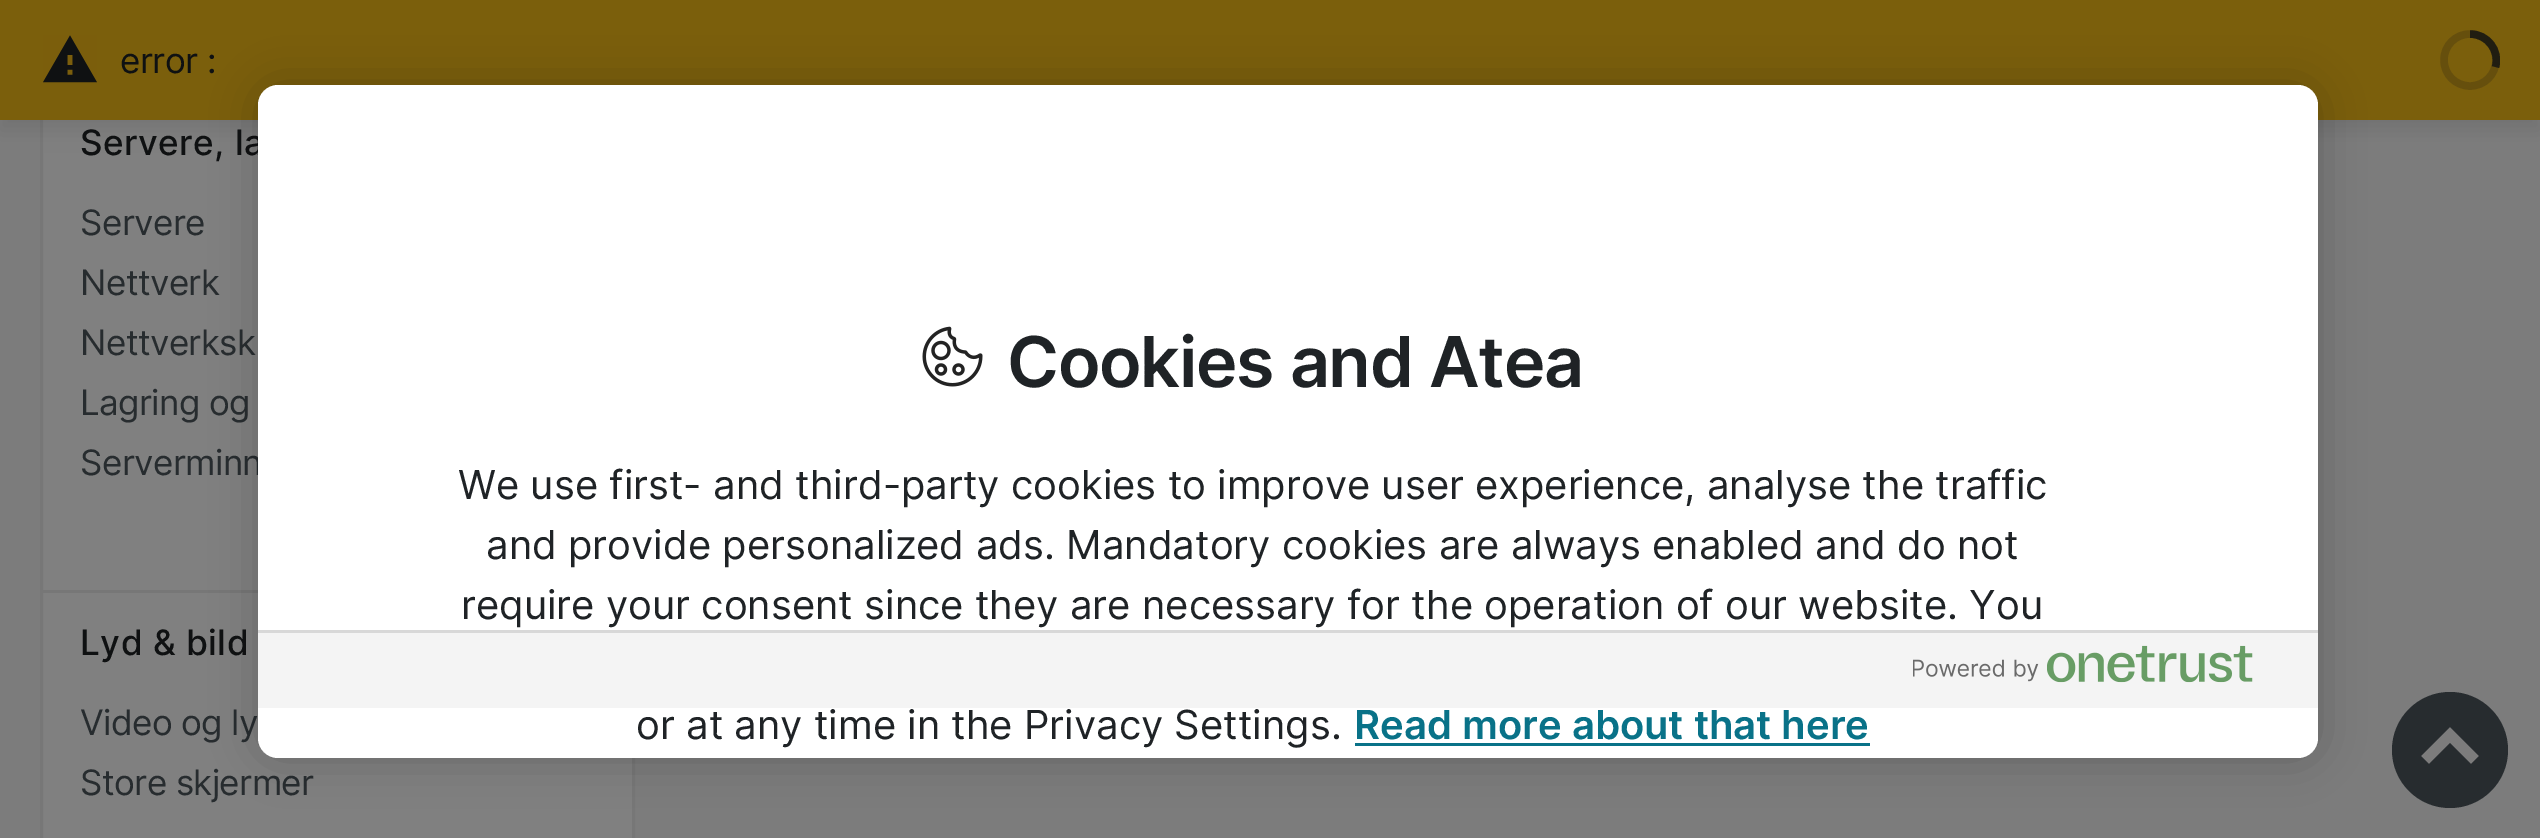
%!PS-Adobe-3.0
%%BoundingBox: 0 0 2540 838
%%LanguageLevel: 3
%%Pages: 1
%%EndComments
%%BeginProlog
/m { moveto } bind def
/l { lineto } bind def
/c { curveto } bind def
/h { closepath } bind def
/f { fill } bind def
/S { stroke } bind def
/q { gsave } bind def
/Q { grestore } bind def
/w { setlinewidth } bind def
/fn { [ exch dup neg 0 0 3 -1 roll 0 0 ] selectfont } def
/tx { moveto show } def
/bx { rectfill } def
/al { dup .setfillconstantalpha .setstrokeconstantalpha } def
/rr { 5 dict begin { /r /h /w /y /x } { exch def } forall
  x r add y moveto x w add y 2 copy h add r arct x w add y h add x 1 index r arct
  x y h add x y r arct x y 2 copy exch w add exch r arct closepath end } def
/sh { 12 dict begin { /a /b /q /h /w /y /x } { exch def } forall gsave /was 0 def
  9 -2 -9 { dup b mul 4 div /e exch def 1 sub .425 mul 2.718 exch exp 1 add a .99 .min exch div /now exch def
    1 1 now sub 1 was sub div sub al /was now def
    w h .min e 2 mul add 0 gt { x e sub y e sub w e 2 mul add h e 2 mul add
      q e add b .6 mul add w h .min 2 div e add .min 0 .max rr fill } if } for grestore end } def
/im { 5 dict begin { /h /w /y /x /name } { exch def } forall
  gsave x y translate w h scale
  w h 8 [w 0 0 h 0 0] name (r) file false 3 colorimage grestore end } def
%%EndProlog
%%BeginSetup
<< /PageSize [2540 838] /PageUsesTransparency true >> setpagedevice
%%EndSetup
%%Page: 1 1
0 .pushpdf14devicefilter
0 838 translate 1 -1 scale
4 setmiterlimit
0.486 setgray
0 0 2540 838 bx
0.502 setgray
43 120 589 718 bx
0.467 setgray
3 w
41.5 -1.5 592 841 rectstroke
0 setgray
0 10 2540 120 0 10 0.1 sh
0.482 0.373 0.047 setrgbcolor
0 0 2540 120 bx
(image0.raw) 43 35 54 48 im
/Inter-Regular 35 fn
0.059 0.067 0.071 setrgbcolor
120 73 m -0.6 0 (error :) ashow
0.4 0.31 0.051 setrgbcolor
7.5 w
2470 34 m 2484.5 34 2496 45.5 2496 60 c 2496 74.5 2484.5 86 2470 86 c 2455.5 86 2444 74.5 2444 60 c 2444 45.5 2455.5 34 2470 34 c S
q
2440 30 60 60 rectclip
0.8 al
0.059 0.067 0.071 setrgbcolor
2470 34 m 2487.5 34 2500 50.5 2495.5 67 c S
Q
q
40 93 595 500 rectclip
0.467 setgray
-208 -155 m 882 -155 l 882 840 l -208 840 l h 40 88 m 635 88 l 636 88 636 88 636 89 c 636 589 l 636 589 636 590 635 590 c 40 590 l 39 590 39 589 39 589 c 39 89 l 39 88 39 88 40 88 c h eofill
Q
/Inter-Medium 35 fn
0.059 0.067 0.071 setrgbcolor
80 155 m 0.5 0 (Servere, la) ashow
/Inter-Regular 35 fn
0.153 0.173 0.184 setrgbcolor
80 235 m -0.6 0 (Servere) ashow
80 295 m -0.6 0 (Nettverk) ashow
80 355 m -0.6 0 (Nettverksk) ashow
80 415 m -0.6 0 (Lagring og) ashow
80 475 m -0.6 0 (Serverminn) ashow
/Inter-Medium 35 fn
0.059 0.067 0.071 setrgbcolor
80 655 m 0.5 0 (Lyd & bild) ashow
/Inter-Regular 35 fn
0.153 0.173 0.184 setrgbcolor
80 735 m -0.6 0 (Video og ly) ashow
80 795 m -0.6 0 (Store skjermer) ashow
0 setgray
258 85 2060 673 20 22.5 0.2 sh
1 setgray
258 85 2060 673 20 rr f
(image1.raw) 922 326 61 61 im
/Inter-SemiBold 70 fn
0.122 0.137 0.149 setrgbcolor
1007 387 m -1.25 0 (Cookies and Atea) ashow
/Inter-Regular 40 fn
(We use first- and third-party cookies to improve user experience, analyse the traffic) 458 499 tx
(and provide personalized ads. Mandatory cookies are always enabled and do not) 486 559 tx
(require your consent since they are necessary for the operation of our website. You) 461 619 tx
(or at any time in the Privacy Settings.) 636 739 tx
/Inter-SemiBold 40 fn
0.035 0.447 0.533 setrgbcolor
(Read more about that here) 1354 739 tx
1355 743 515 3 bx
0.957 setgray
258 633 2060 75 bx
0.847 setgray
258 630 2060 3 bx
(image2.raw) 1913 645 340 38 im
0.153 0.173 0.184 setrgbcolor
2450 692 m 2418 692 2392 718 2392 750 c 2392 782 2418 808 2450 808 c 2482 808 2508 782 2508 750 c 2508 718 2482 692 2450 692 c h 2471 764 m 2450 743 l 2429 764 l 2421 756 l 2450 727 l 2479 756 l h f
.poppdf14devicefilter showpage
%%EOF
